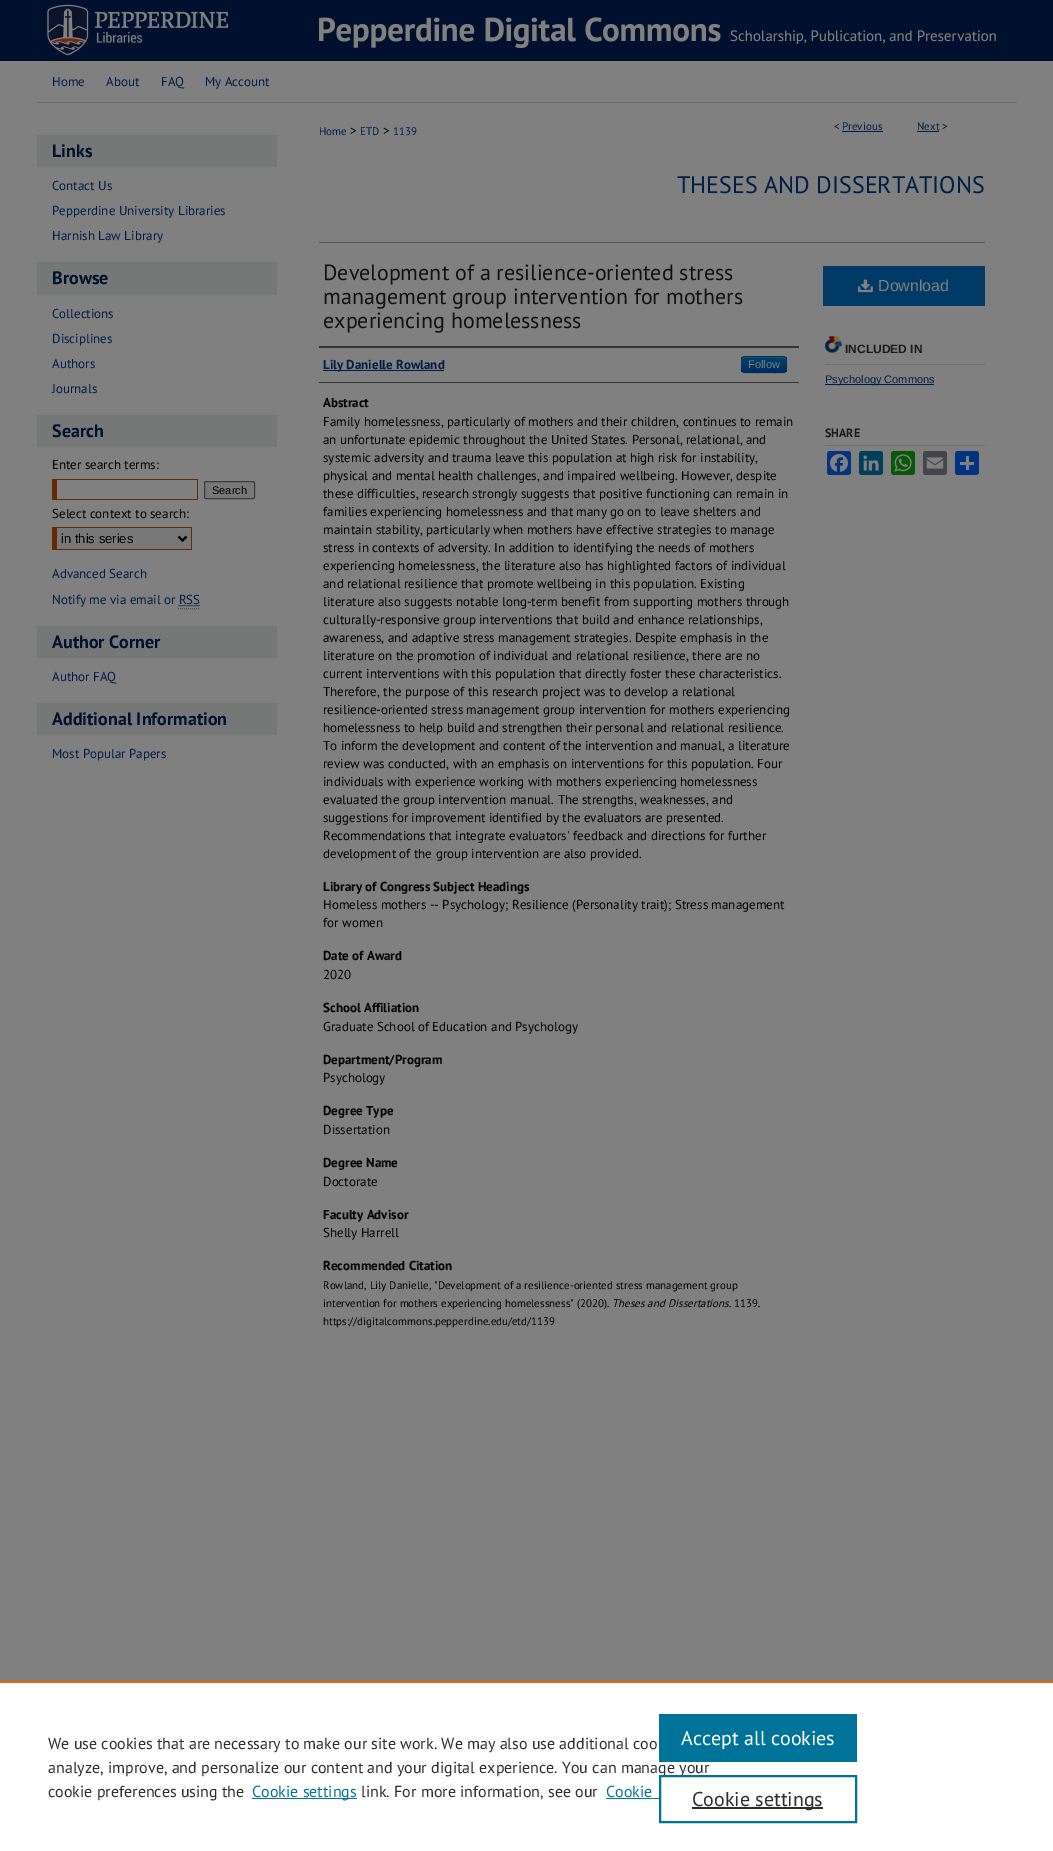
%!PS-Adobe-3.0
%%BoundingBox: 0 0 1053 1851
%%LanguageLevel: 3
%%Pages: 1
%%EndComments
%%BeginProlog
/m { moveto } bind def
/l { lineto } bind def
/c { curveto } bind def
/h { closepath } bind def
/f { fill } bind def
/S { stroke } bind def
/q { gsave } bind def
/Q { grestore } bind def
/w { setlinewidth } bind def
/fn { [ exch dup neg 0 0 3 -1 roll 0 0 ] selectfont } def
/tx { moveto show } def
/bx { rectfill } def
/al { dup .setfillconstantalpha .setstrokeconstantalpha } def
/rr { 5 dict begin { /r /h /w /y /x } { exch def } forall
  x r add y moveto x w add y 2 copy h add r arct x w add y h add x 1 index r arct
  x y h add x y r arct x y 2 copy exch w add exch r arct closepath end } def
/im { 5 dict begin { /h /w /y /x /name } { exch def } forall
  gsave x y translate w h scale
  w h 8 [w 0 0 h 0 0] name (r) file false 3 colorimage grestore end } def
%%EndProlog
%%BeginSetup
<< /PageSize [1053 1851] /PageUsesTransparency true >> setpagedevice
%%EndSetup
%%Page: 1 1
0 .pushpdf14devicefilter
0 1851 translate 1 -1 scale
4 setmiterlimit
0.502 setgray
0 0 1053 1851 bx
0 0.067 0.18 setrgbcolor
0 0 1053 61 bx
(image0.raw) 46 3 950 54 im
0.424 setgray
37 102 980 1 bx
/PTSans-Regular 13 fn
0 0.114 0.267 setrgbcolor
(Home) 52 86 tx
(About) 106 86 tx
(FAQ) 161 86 tx
(My Account) 205 86 tx
0.463 0.471 0.471 setrgbcolor
37 135 240 32 bx
/PTSans-Bold 18 fn
0 0.067 0.18 setrgbcolor
(Links) 52 157 tx
/PTSans-Regular 13 fn
0 0.114 0.267 setrgbcolor
(Contact Us) 52 190 tx
(Pepperdine University Libraries) 52 215 tx
(Harnish Law Library) 52 240 tx
0.463 0.471 0.471 setrgbcolor
37 262 240 33 bx
/PTSans-Bold 18 fn
0 0.067 0.18 setrgbcolor
(Browse) 52 284 tx
/PTSans-Regular 13 fn
0 0.114 0.267 setrgbcolor
(Collections) 52 318 tx
(Disciplines) 52 343 tx
(Authors) 52 368 tx
(Journals) 52 393 tx
0.463 0.471 0.471 setrgbcolor
37 415 240 32 bx
/PTSans-Bold 18 fn
0 0.067 0.18 setrgbcolor
(Search) 52 437 tx
/PTSans-Regular 13 fn
0 setgray
(Enter search terms:) 52 469 tx
0.38 0.173 0 setrgbcolor
52 479 146 1 bx
197 479 1 21 bx
52 499 146 1 bx
52 479 5 21 bx
0.471 setgray
204.5 481.5 50 17 1.5 rr q f Q
0.231 setgray
S
/LiberationSans-Regular 11 fn
0 setgray
(Search) 212 494 tx
/PTSans-Regular 13 fn
(Select context to search:) 52 518 tx
0.471 setgray
57 528 134 21 bx
0.38 0.173 0 setrgbcolor
52 527 140 1 bx
191 527 1 23 bx
52 549 140 1 bx
52 527 5 23 bx
0 setgray
2 w
178.5 536.5 m 182.5 540.5 l 186.5 536.5 l S
/LiberationSans-Regular 13 fn
(in this series) 61 543 tx
/PTSans-Regular 13 fn
0 0.114 0.267 setrgbcolor
(Advanced Search) 52 578 tx
(Notify me via email or RSS) 52 604 tx
1 w
[1 1] 0 setdash
178.5 605.5 m 200 605.5 l S
0.302 setgray
178 608.5 m 200 608.5 l S
0.463 0.471 0.471 setrgbcolor
37 626 240 32 bx
/PTSans-Bold 18 fn
0 0.067 0.18 setrgbcolor
(Author Corner) 52 648 tx
/PTSans-Regular 13 fn
0 0.114 0.267 setrgbcolor
(Author FAQ) 52 681 tx
0.463 0.471 0.471 setrgbcolor
37 703 240 32 bx
/PTSans-Bold 18 fn
0 0.067 0.18 setrgbcolor
(Additional Information) 52 725 tx
/PTSans-Regular 13 fn
0 0.114 0.267 setrgbcolor
(Most Popular Papers) 52 758 tx
/PTSans-Regular 11 fn
(Home) 319 135 tx
/PTSans-Regular 13 fn
0 setgray
(>) 350 135 tx
/PTSans-Regular 11 fn
0 0.114 0.267 setrgbcolor
(ETD) 360 135 tx
/PTSans-Regular 13 fn
0 setgray
(>) 383 135 tx
/PTSans-Regular 11 fn
0 0.114 0.267 setrgbcolor
(1139) 393 135 tx
0.067 setgray
(<) 834 130 tx
0 0.114 0.267 setrgbcolor
(Previous) 842 130 tx
842 131 41 1 bx
(Next) 917 130 tx
917 131 22 1 bx
0.067 setgray
(>) 942 130 tx
/PTSans-Regular 24 fn
0 0.114 0.267 setrgbcolor
(THESES AND DISSERTATIONS) 677 193 tx
0.333 setgray
319 242 666 1 bx
/PTSans-Regular 22 fn
0.067 setgray
(Development of a resilience-oriented stress) 323 280 tx
(management group intervention for mothers) 323 304 tx
(experiencing homelessness) 323 328 tx
0.2 setgray
319 346 480 2 bx
319 382 480 1 bx
0 0.114 0.267 setrgbcolor
323 370 121 1 bx
/PTSans-Bold 13 fn
(Lily Danielle Rowland) 323 369 tx
0 0.227 0.4 setrgbcolor
741 356 46 17 4 rr f
q
741 356 46 17 4 rr clip newpath
q 741 357 m 787 357 l 787 372 l 741 372 l h clip newpath
<< /ShadingType 2 /ColorSpace /DeviceRGB /Coords [764 357 764 372] /Extend [true true] /Function << /FunctionType 2 /Domain [0 1] /C0 [0 0.267 0.4] /C1 [0 0.169 0.4] /N 1 >> >> shfill Q
Q
0.2 al
0.502 setgray
745 358 m 778 358 l 785 358 786 358 786 364 c 786 370 l 786 363 l 786 356 784 357 777 357 c 751 357 l 744 357 742 356 742 363 c 742 371 l 742 368 740 358 745 358 c h f
0.25 al
0 setgray
[] 0 setdash
785.5 371.5 m 785 372 784 372.5 783 372.5 c 745 372.5 l 744 372.5 743 372 742.5 371.5 c S
0.1 al
742.5 371.5 m 741 369.5 741.5 366.5 741.5 364.5 c 741.5 355.5 742 356.5 751.5 356.5 c 776.5 356.5 l 786 356.5 786.5 355.5 786.5 364.5 c 786.5 366.5 787 369.5 785.5 371.5 c S
/LiberationSans-Regular 11 fn
1 al
0.502 setgray
(Follow) 748 368 tx
/PTSans-Bold 13 fn
0 setgray
(Abstract) 323 407 tx
/PTSans-Regular 13 fn
(Family homelessness, particularly of mothers and their children, continues to remain) 323 426 tx
(an unfortunate epidemic throughout the United States. Personal, relational, and) 323 444 tx
(systemic adversity and trauma leave this population at high risk for instability,) 323 462 tx
(physical and mental health challenges, and impaired wellbeing. However, despite) 323 480 tx
(these difficulties, research strongly suggests that positive functioning can remain in) 323 498 tx
(families experiencing homelessness and that many go on to leave shelters and) 323 516 tx
(maintain stability, particularly when mothers have effective strategies to manage) 323 534 tx
(stress in contexts of adversity. In addition to identifying the needs of mothers) 323 552 tx
(experiencing homelessness, the literature also has highlighted factors of individual) 323 570 tx
(and relational resilience that promote wellbeing in this population. Existing) 323 588 tx
(literature also suggests notable long-term benefit from supporting mothers through) 323 606 tx
(culturally-responsive group interventions that build and enhance relationships,) 323 624 tx
(awareness, and adaptive stress management strategies. Despite emphasis in the) 323 642 tx
(literature on the promotion of individual and relational resilience, there are no) 323 660 tx
(current interventions with this population that directly foster these characteristics.) 323 678 tx
(Therefore, the purpose of this research project was to develop a relational) 323 696 tx
(resilience-oriented stress management group intervention for mothers experiencing) 323 714 tx
(homelessness to help build and strengthen their personal and relational resilience.) 323 732 tx
(To inform the development and content of the intervention and manual, a literature) 323 750 tx
(review was conducted, with an emphasis on interventions for this population. Four) 323 768 tx
(individuals with experience working with mothers experiencing homelessness) 323 786 tx
(evaluated the group intervention manual. The strengths, weaknesses, and) 323 804 tx
(suggestions for improvement identified by the evaluators are presented.) 323 822 tx
(Recommendations that integrate evaluators' feedback and directions for further) 323 840 tx
(development of the group intervention are also provided.) 323 858 tx
/PTSans-Bold 13 fn
(Library of Congress Subject Headings) 323 891 tx
/PTSans-Regular 13 fn
(Homeless mothers -- Psychology; Resilience \(Personality trait\); Stress management) 323 909 tx
(for women) 323 927 tx
/PTSans-Bold 13 fn
(Date of Award) 323 960 tx
/PTSans-Regular 13 fn
(2020) 323 979 tx
/PTSans-Bold 13 fn
(School Affiliation) 323 1012 tx
/PTSans-Regular 13 fn
(Graduate School of Education and Psychology) 323 1031 tx
/PTSans-Bold 13 fn
(Department/Program) 323 1064 tx
/PTSans-Regular 13 fn
(Psychology) 323 1082 tx
/PTSans-Bold 13 fn
(Degree Type) 323 1115 tx
/PTSans-Regular 13 fn
(Dissertation) 323 1134 tx
/PTSans-Bold 13 fn
(Degree Name) 323 1167 tx
/PTSans-Regular 13 fn
(Doctorate) 323 1186 tx
/PTSans-Bold 13 fn
(Faculty Advisor) 323 1219 tx
/PTSans-Regular 13 fn
(Shelly Harrell) 323 1237 tx
/PTSans-Bold 13 fn
(Recommended Citation) 323 1270 tx
/PTSans-Regular 11 fn
(Rowland, Lily Danielle, "Development of a resilience-oriented stress management group) 323 1289 tx
(intervention for mothers experiencing homelessness" \(2020\).) 323 1307 tx
/PTSans-Italic 11 fn
(Theses and Dissertations) 612 1307 tx
/PTSans-Regular 11 fn
(. 1139.) 729 1307 tx
(https://digitalcommons.pepperdine.edu/etd/1139) 323 1325 tx
0 0.227 0.4 setrgbcolor
823 266 162 40 bx
(image1.raw) 858 279 15 14 im
/LiberationSans-Regular 16 fn
0.502 setgray
(Download) 878 291 tx
(image2.raw) 825 336 17 17 im
0.435 setgray
825 364 160 1 bx
/LiberationSans-Bold 12 fn
0.102 setgray
(INCLUDED IN) 845 353 tx
0 0.114 0.267 setrgbcolor
825 384 109 1 bx
/LiberationSans-Regular 11 fn
(Psychology Commons) 825 383 tx
0.435 setgray
825 445 160 1 bx
/PTSans-Bold 12 fn
0.102 setgray
(SHARE) 825 437 tx
0.016 0.2 0.502 setrgbcolor
827 451 24 24 3 rr f
(image3.raw) 830 454 18 18 im
0 0.243 0.357 setrgbcolor
859 451 24 24 3 rr f
(image4.raw) 863 455 16 16 im
0.035 0.345 0.02 setrgbcolor
891 451 24 24 3 rr f
(image5.raw) 894 454 18 18 im
0.267 0.271 0.282 setrgbcolor
923 451 24 24 3 rr f
(image6.raw) 926 457 18 12 im
0.004 0.2 0.502 setrgbcolor
955 451 24 24 3 rr f
0.502 setgray
966 456 3 14 bx
960 462 14 3 bx
1 setgray
0 1683 1053 168 bx
0.922 0.396 0 setrgbcolor
0 1681 1053 2 bx
/PTSans-Regular 16 fn
0.18 setgray
(We use cookies that are necessary to make our site work. We may also use additional coo) 48 1749 tx
(analyze, improve, and personalize our content and your digital experience. You can manage your) 48 1773 tx
(cookie preferences using the) 48 1797 tx
0 0.451 0.596 setrgbcolor
252 1798 105 1 bx
(Cookie settings) 252 1797 tx
0.18 setgray
(link. For more information, see our) 361 1797 tx
0 0.451 0.596 setrgbcolor
(Cookie) 606 1797 tx
606 1798 53 1 bx
659 1714 198 48 bx
/PTSans-Regular 20 fn
1 setgray
(Accept all cookies) 681 1745 tx
0 0.451 0.596 setrgbcolor
2 w
660 1776 196 46 rectstroke
0.18 setgray
692 1807 131 2 bx
(Cookie settings) 692 1806 tx
.poppdf14devicefilter showpage
%%EOF
